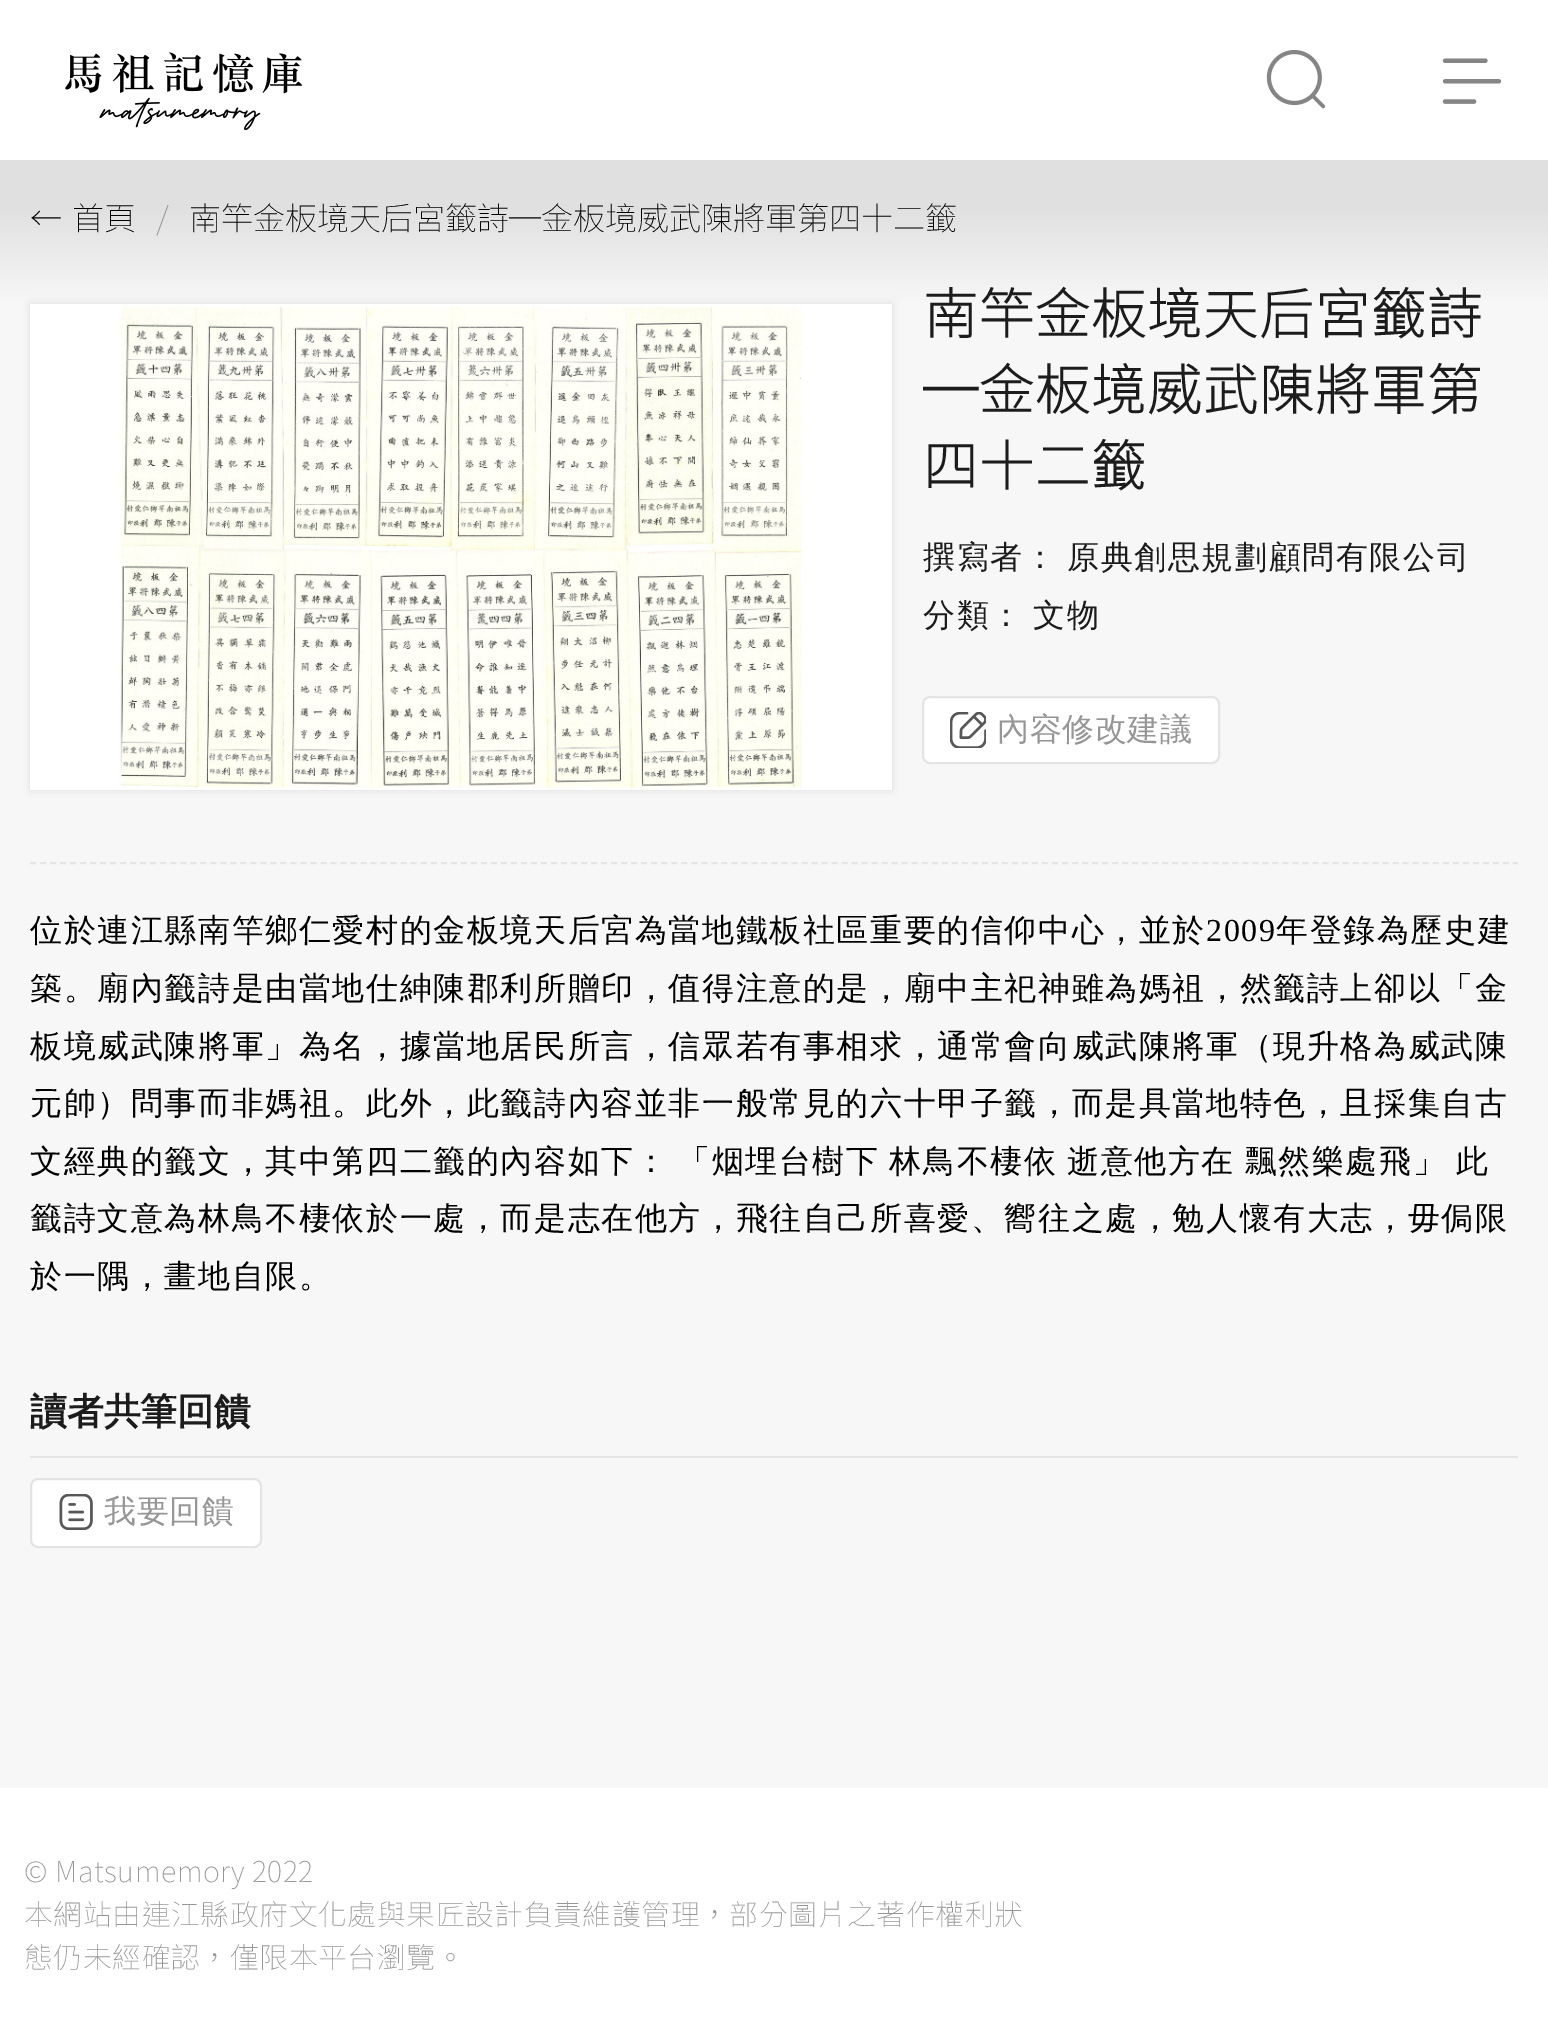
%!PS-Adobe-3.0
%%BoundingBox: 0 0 1548 2037
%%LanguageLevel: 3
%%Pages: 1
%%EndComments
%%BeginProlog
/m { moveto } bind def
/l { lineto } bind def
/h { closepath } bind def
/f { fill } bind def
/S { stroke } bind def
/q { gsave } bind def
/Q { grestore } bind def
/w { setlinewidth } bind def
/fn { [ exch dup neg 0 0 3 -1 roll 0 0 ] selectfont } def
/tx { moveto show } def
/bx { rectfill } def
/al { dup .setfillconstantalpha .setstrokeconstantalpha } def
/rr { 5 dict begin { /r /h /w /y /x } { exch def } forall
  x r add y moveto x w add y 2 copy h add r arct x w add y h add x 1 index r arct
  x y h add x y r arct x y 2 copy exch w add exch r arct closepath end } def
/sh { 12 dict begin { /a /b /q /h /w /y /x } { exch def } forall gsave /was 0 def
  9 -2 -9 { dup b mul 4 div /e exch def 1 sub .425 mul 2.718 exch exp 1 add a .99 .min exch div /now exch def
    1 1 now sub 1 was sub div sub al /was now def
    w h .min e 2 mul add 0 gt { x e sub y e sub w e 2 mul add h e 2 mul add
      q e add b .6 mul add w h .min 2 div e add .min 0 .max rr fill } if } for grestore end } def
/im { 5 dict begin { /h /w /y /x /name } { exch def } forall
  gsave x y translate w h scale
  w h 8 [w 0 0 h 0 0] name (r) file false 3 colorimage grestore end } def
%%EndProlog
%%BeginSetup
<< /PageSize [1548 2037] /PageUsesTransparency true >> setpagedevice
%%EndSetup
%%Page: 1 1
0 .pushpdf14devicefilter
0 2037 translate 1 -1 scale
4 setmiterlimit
1 setgray
0 0 1548 2037 bx
q 0 160 m 1548 160 l 1548 1788 l 0 1788 l h clip newpath
<< /ShadingType 2 /ColorSpace /DeviceRGB /Coords [774 0 774 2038] /Extend [true true] /Function << /FunctionType 3 /Domain [0 1] /Functions [<< /FunctionType 2 /Domain [0 1] /C0 [0.878 0.878 0.878] /C1 [0.878 0.878 0.878] /N 1 >> << /FunctionType 2 /Domain [0 1] /C0 [0.878 0.878 0.878] /C1 [0.969 0.969 0.969] /N 1 >> << /FunctionType 2 /Domain [0 1] /C0 [0.969 0.969 0.969] /C1 [0.969 0.969 0.969] /N 1 >>] /Bounds [0.1 0.15] /Encode [0 1 0 1 0 1] >> >> shfill Q
(image0.raw) 65 52 238 78 im
(image1.raw) 1266 49 60 60 im
(image2.raw) 1442 58 60 46 im
/NotoSansTC-Thin 32 fn
0 setgray
(←) 30 230 tx
(首頁) 72 230 tx
0.588 setgray
(/) 156 230 tx
0 setgray
(南竿金板境天后宮籤詩─金板境威武陳將軍第四十二籤) 189 230 tx
0.898 setgray
2 w
[6 4.02] 0 setdash
30 863 m 1518 863 l S
0 setgray
30 304 862 486 0 4 0.1 sh
1 setgray
30 304 862 486 bx
(image3.raw) 119 306 683 483 im
/NotoSansTC-Bold 54.4 fn
0.11 setgray
923 334 m 1.6 0 (南竿金板境天后宮籤詩) ashow
923 410 m 1.6 0 (─金板境威武陳將軍第) ashow
923 486 m 1.6 0 (四十二籤) ashow
/WenQuanYiZenHei-Medium 32 fn
923 568 m -1.5 0 32 1.6 0 (撰寫者： 原典創思規劃顧問有限公司) awidthshow
923 626 m -1.5 0 32 1.6 0 (分類： 文物) awidthshow
1 setgray
923 697 296 66 7 rr q f Q
0.894 setgray
[] 0 setdash
S
(image4.raw) 950 712 36 36 im
0.588 setgray
997 740 m 0.5 0 (內容修改建議) ashow
0 setgray
30 941 m 1.6 0 (位於連江縣南竿鄉仁愛村的金板境天后宮為當地鐵板社區重要的信仰中心，並於) ashow
/LiberationSerif-Regular 32 fn
1206 941 m 1.6 0 (2009) ashow
/WenQuanYiZenHei-Medium 32 fn
1276 941 m 1.6 0 (年登錄為歷史建) ashow
30 999 m 1.6 0 (築。廟內籤詩是由當地仕紳陳郡利所贈印，值得注意的是，廟中主祀神雖為媽祖，然籤詩上卻以「金) ashow
30 1057 m 1.6 0 (板境威武陳將軍」為名，據當地居民所言，信眾若有事相求，通常會向威武陳將軍（現升格為威武陳) ashow
30 1114 m 1.6 0 (元帥）問事而非媽祖。此外，此籤詩內容並非一般常見的六十甲子籤，而是具當地特色，且採集自古) ashow
30 1172 m -1.5 0 32 1.6 0 (文經典的籤文，其中第四二籤的內容如下： 「烟埋台樹下 林鳥不棲依 逝意他方在 飄然樂處飛」 此) awidthshow
30 1229 m 1.6 0 (籤詩文意為林鳥不棲依於一處，而是志在他方，飛往自己所喜愛、嚮往之處，勉人懷有大志，毋侷限) ashow
30 1287 m 1.6 0 (於一隅，畫地自限。) ashow
0.898 setgray
30 1456 1488 2 bx
/WenQuanYiZenHei-Bold 36.75 fn
0.11 setgray
(讀者共筆回饋) 30 1424 tx
1 setgray
31 1479 230 68 7 rr q f Q
0.894 setgray
S
(image5.raw) 59 1494 34 36 im
/WenQuanYiZenHei-Medium 32 fn
0.588 setgray
104 1522 m 0.5 0 (我要回饋) ashow
/NotoSansTC-Thin 28.8 fn
24 1882 m 0.6 0 (© Matsumemory 2022) ashow
24 1925 m 0.6 0 (本網站由連江縣政府文化處與果匠設計負責維護管理，部分圖片之著作權利狀) ashow
24 1968 m 0.6 0 (態仍未經確認，僅限本平台瀏覽。) ashow
.poppdf14devicefilter showpage
%%EOF
